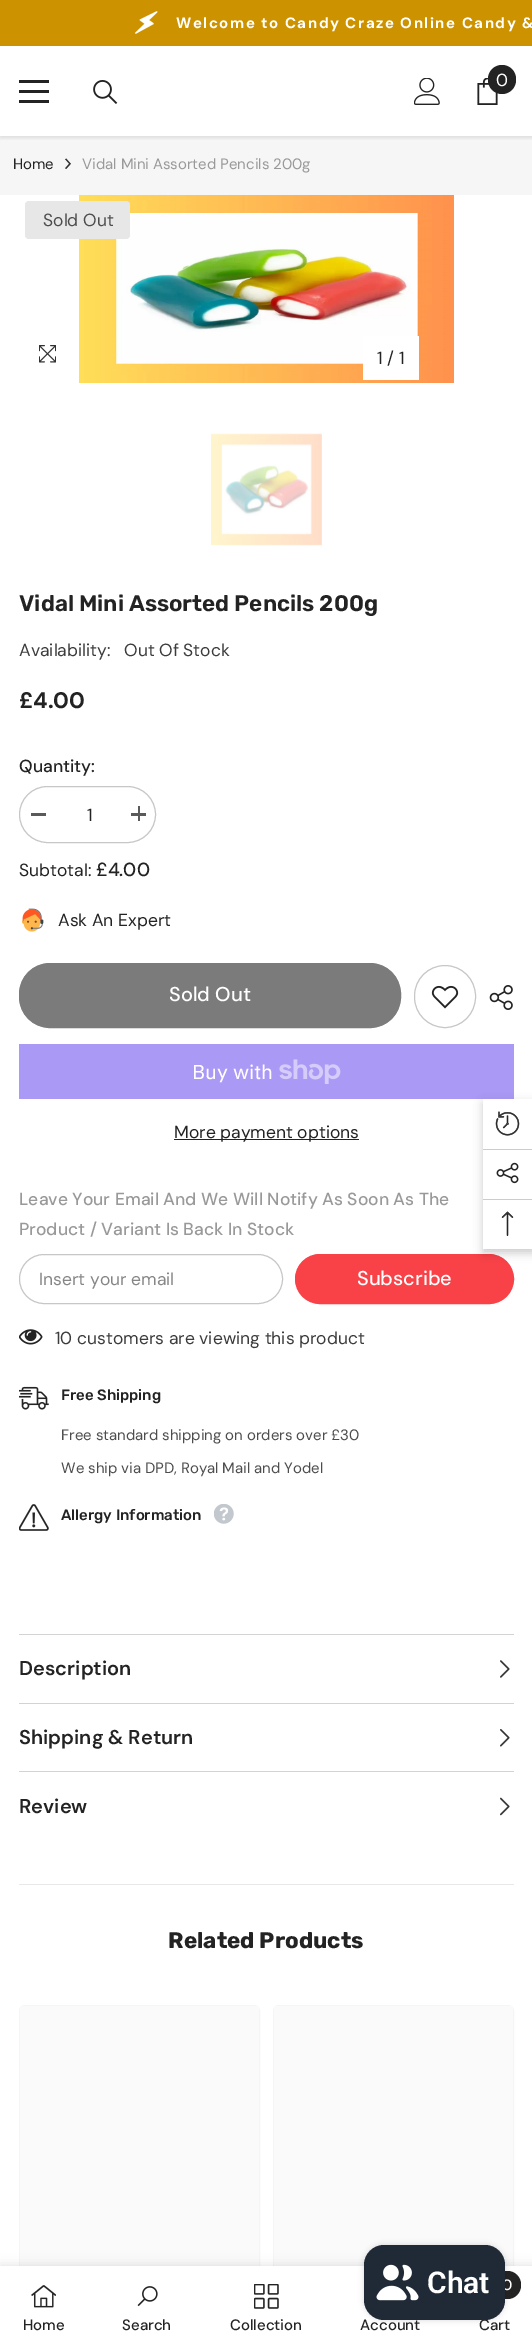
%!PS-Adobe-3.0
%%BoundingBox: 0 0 532 2346
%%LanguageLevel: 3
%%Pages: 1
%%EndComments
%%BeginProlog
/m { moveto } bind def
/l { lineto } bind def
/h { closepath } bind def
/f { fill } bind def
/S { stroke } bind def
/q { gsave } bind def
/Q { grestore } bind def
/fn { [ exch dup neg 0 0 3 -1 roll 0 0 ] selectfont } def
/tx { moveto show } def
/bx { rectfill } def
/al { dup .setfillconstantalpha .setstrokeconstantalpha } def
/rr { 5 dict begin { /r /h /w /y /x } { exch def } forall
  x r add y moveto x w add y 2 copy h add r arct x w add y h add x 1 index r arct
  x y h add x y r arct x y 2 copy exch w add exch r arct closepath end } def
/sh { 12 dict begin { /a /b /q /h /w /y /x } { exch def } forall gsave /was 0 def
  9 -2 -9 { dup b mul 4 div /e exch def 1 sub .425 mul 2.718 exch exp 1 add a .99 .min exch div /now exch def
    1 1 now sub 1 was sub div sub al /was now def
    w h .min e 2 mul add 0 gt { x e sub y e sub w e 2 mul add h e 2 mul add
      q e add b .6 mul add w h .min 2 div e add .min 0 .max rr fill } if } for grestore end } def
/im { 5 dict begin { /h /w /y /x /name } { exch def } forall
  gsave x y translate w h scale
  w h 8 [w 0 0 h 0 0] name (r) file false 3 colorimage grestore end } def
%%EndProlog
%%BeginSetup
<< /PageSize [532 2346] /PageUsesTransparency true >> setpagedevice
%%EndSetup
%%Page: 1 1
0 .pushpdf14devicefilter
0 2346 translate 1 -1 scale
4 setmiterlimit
1 setgray
0 0 532 2346 bx
0.804 0.573 0 setrgbcolor
0 0 532 46 bx
(image0.raw) 135 11 23 23 im
/DMSans-Bold 15 fn
1 setgray
176 28 m 1.5 0 (Welcome to Candy Craze Online Candy &) ashow
0.965 setgray
0 136 532 59 bx
q
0 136 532 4 rectclip
0 setgray
0 48 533 90 0 2 0.1 sh
Q
0.137 setgray
19 90 30 3 bx
19 80 30 3 bx
19 100 30 3 bx
(image1.raw) 93 80 25 24 im
(image2.raw) 414 78 26 27 im
(image3.raw) 477 78 21 27 im
488 65 28 29 14 rr f
/DMSans-Regular 17.5 fn
1 setgray
(0) 496 86 tx
/DMSans-Regular 15 fn
0.137 setgray
(Home) 13 169 tx
(image4.raw) 65 158 6 11 im
0.6 setgray
(Vidal Mini Assorted Pencils 200g) 82 169 tx
(image6.raw) 79 195 375 188 im
0.906 setgray
25 201 105 38 4 rr f
/DMSans-Regular 17.5 fn
0.302 setgray
(Sold Out) 43 226 tx
(image5.raw) 39 345 17 18 im
1 setgray
363 336 56 44 bx
0.137 setgray
(1 / 1) 377 364 tx
(image7.raw) 211 433 111 113 im
/Rubik-SemiBold 22.5 fn
(Vidal Mini Assorted Pencils 200g) 19 611 tx
/DMSans-Regular 17.5 fn
0.235 setgray
(Availability:) 19 656 tx
(Out Of Stock) 124 656 tx
/DMSans-Bold 22.5 fn
0.137 setgray
(£4.00) 19 708 tx
/DMSans-Medium 17.5 fn
(Quantity:) 19 772 tx
0.78 setgray
19.5 786.5 136 56 28 rr S
0.353 setgray
31 813 15 3 bx
/DMSans-Regular 17.5 fn
0.137 setgray
(1) 87 821 tx
0.353 setgray
131 813 15 3 bx
138 806 2 15 bx
0.137 setgray
(Subtotal:) 19 876 tx
/DMSans-Medium 19 fn
(£4.00) 96 876 tx
(image8.raw) 22 908 22 24 im
/DMSans-Regular 17.5 fn
(Ask An Expert) 58 926 tx
0.482 setgray
19.5 963.5 381 64 30.5 rr q f Q
S
/DMSans-Medium 20 fn
1 setgray
(Sold Out) 169 1001 tx
0.78 setgray
414.5 965.5 61 62 30.5 rr S
(image9.raw) 431 985 28 24 im
(image10.raw) 489 985 24 25 im
0.667 0.6 0.961 setrgbcolor
19 1044 495 55 bx
/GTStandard-Regular 20 fn
1 setgray
(Buy with) 192 1079 tx
(image11.raw) 279 1059 62 25 im
0.137 setgray
174 1139 185 1 bx
/DMSans-Regular 17.5 fn
(More payment options) 174 1138 tx
/DMSans-Medium 17.5 fn
0.6 setgray
(Leave Your Email And We Will Notify As Soon As The) 19 1205 tx
(Product / Variant Is Back In Stock) 19 1235 tx
0.78 setgray
19.5 1254.5 263 49 24.5 rr S
/DMSans-Regular 17.5 fn
0.525 setgray
(Insert your email) 39 1285 tx
0.973 0.259 0.282 setrgbcolor
295.5 1254.5 218 49 24.5 rr q f Q
S
/DMSans-Medium 20 fn
1 setgray
(Subscribe) 357 1285 tx
(image12.raw) 19 1329 24 16 im
/DMSans-Regular 17.5 fn
0.235 setgray
(10 customers are viewing this product) 55 1344 tx
(image13.raw) 19 1386 30 24 im
/Rubik-Medium 15 fn
0.137 setgray
(Free Shipping) 61 1400 tx
/DMSans-Regular 15 fn
0.302 setgray
(Free standard shipping on orders over £30) 61 1440 tx
(We ship via DPD, Royal Mail and Yodel) 61 1473 tx
(image14.raw) 19 1504 30 27 im
/Rubik-Medium 15 fn
0.137 setgray
(Allergy Information) 61 1520 tx
(image15.raw) 214 1504 20 20 im
0.827 setgray
19 1634 495 1 bx
/DMSans-SemiBold 20 fn
0.137 setgray
(Description) 19 1675 tx
(image16.raw) 500 1660 10 18 im
0.827 setgray
19 1703 495 1 bx
0.137 setgray
(Shipping & Return) 19 1744 tx
(image17.raw) 500 1729 10 18 im
0.827 setgray
19 1771 495 1 bx
0.137 setgray
(Review) 19 1813 tx
(image18.raw) 500 1797 10 19 im
0.91 setgray
19 1884 495 1 bx
/Rubik-Bold 22.5 fn
0.137 setgray
(Related Products) 168 1948 tx
0.961 setgray
19.5 2005.5 240 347 5.5 rr S
q 20 2006 m 259 2006 l 259 2266 l 20 2266 l h clip newpath
<< /ShadingType 2 /ColorSpace /DeviceRGB /Coords [-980 2165 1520 2165] /Extend [true true] /Function << /FunctionType 3 /Domain [0 1] /Functions [<< /FunctionType 2 /Domain [0 1] /C0 [0.98 0.98 0.98] /C1 [0.98 0.98 0.98] /N 1 >> << /FunctionType 2 /Domain [0 1] /C0 [0.98 0.98 0.98] /C1 [0.945 0.949 0.953] /N 1 >> << /FunctionType 2 /Domain [0 1] /C0 [0.945 0.949 0.953] /C1 [0.98 0.98 0.98] /N 1 >> << /FunctionType 2 /Domain [0 1] /C0 [0.98 0.98 0.98] /C1 [0.98 0.98 0.98] /N 1 >>] /Bounds [0.04 0.25 0.36] /Encode [0 1 0 1 0 1 0 1] >> >> shfill Q
273.5 2005.5 240 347 5.5 rr S
q 274 2006 m 513 2006 l 513 2266 l 274 2266 l h clip newpath
<< /ShadingType 2 /ColorSpace /DeviceRGB /Coords [-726 2165 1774 2165] /Extend [true true] /Function << /FunctionType 3 /Domain [0 1] /Functions [<< /FunctionType 2 /Domain [0 1] /C0 [0.98 0.98 0.98] /C1 [0.98 0.98 0.98] /N 1 >> << /FunctionType 2 /Domain [0 1] /C0 [0.98 0.98 0.98] /C1 [0.945 0.949 0.953] /N 1 >> << /FunctionType 2 /Domain [0 1] /C0 [0.945 0.949 0.953] /C1 [0.98 0.98 0.98] /N 1 >> << /FunctionType 2 /Domain [0 1] /C0 [0.98 0.98 0.98] /C1 [0.98 0.98 0.98] /N 1 >>] /Bounds [0.04 0.25 0.36] /Encode [0 1 0 1 0 1 0 1] >> >> shfill Q
0 setgray
0 2266 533 80 0 5.5 0.12 sh
1 setgray
0 2266 532 80 bx
(image19.raw) 31 2285 25 23 im
/DMSans-Medium 15 fn
0.137 setgray
(Home) 23 2330 tx
(image20.raw) 137 2286 21 21 im
(Search) 122 2330 tx
(image21.raw) 254 2284 25 25 im
(Collection) 230 2330 tx
(Account) 360 2330 tx
494 2271 27 28 13.5 rr f
1 setgray
(0) 502 2290 tx
(image22.raw) 502 2306 2 3 im
0.137 setgray
(Cart) 479 2330 tx
0 setgray
483 1103 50 150 0 4.5 0.2 sh
1 setgray
483 1099 49 150 bx
(image23.raw) 495 1111 25 25 im
0.8 setgray
483 1149 49 1 bx
(image24.raw) 496 1162 23 22 im
483 1199 49 1 bx
(image25.raw) 501 1211 13 25 im
0 setgray
364 2245 141 75 20 3 0.15 sh
0.125 0.165 0.212 setrgbcolor
364 2245 141 75 20 rr f
(image26.raw) 376 2264 43 37 im
/Roboto-SemiBold 30 fn
1 setgray
(Chat) 427 2293 tx
.poppdf14devicefilter showpage
%%EOF
